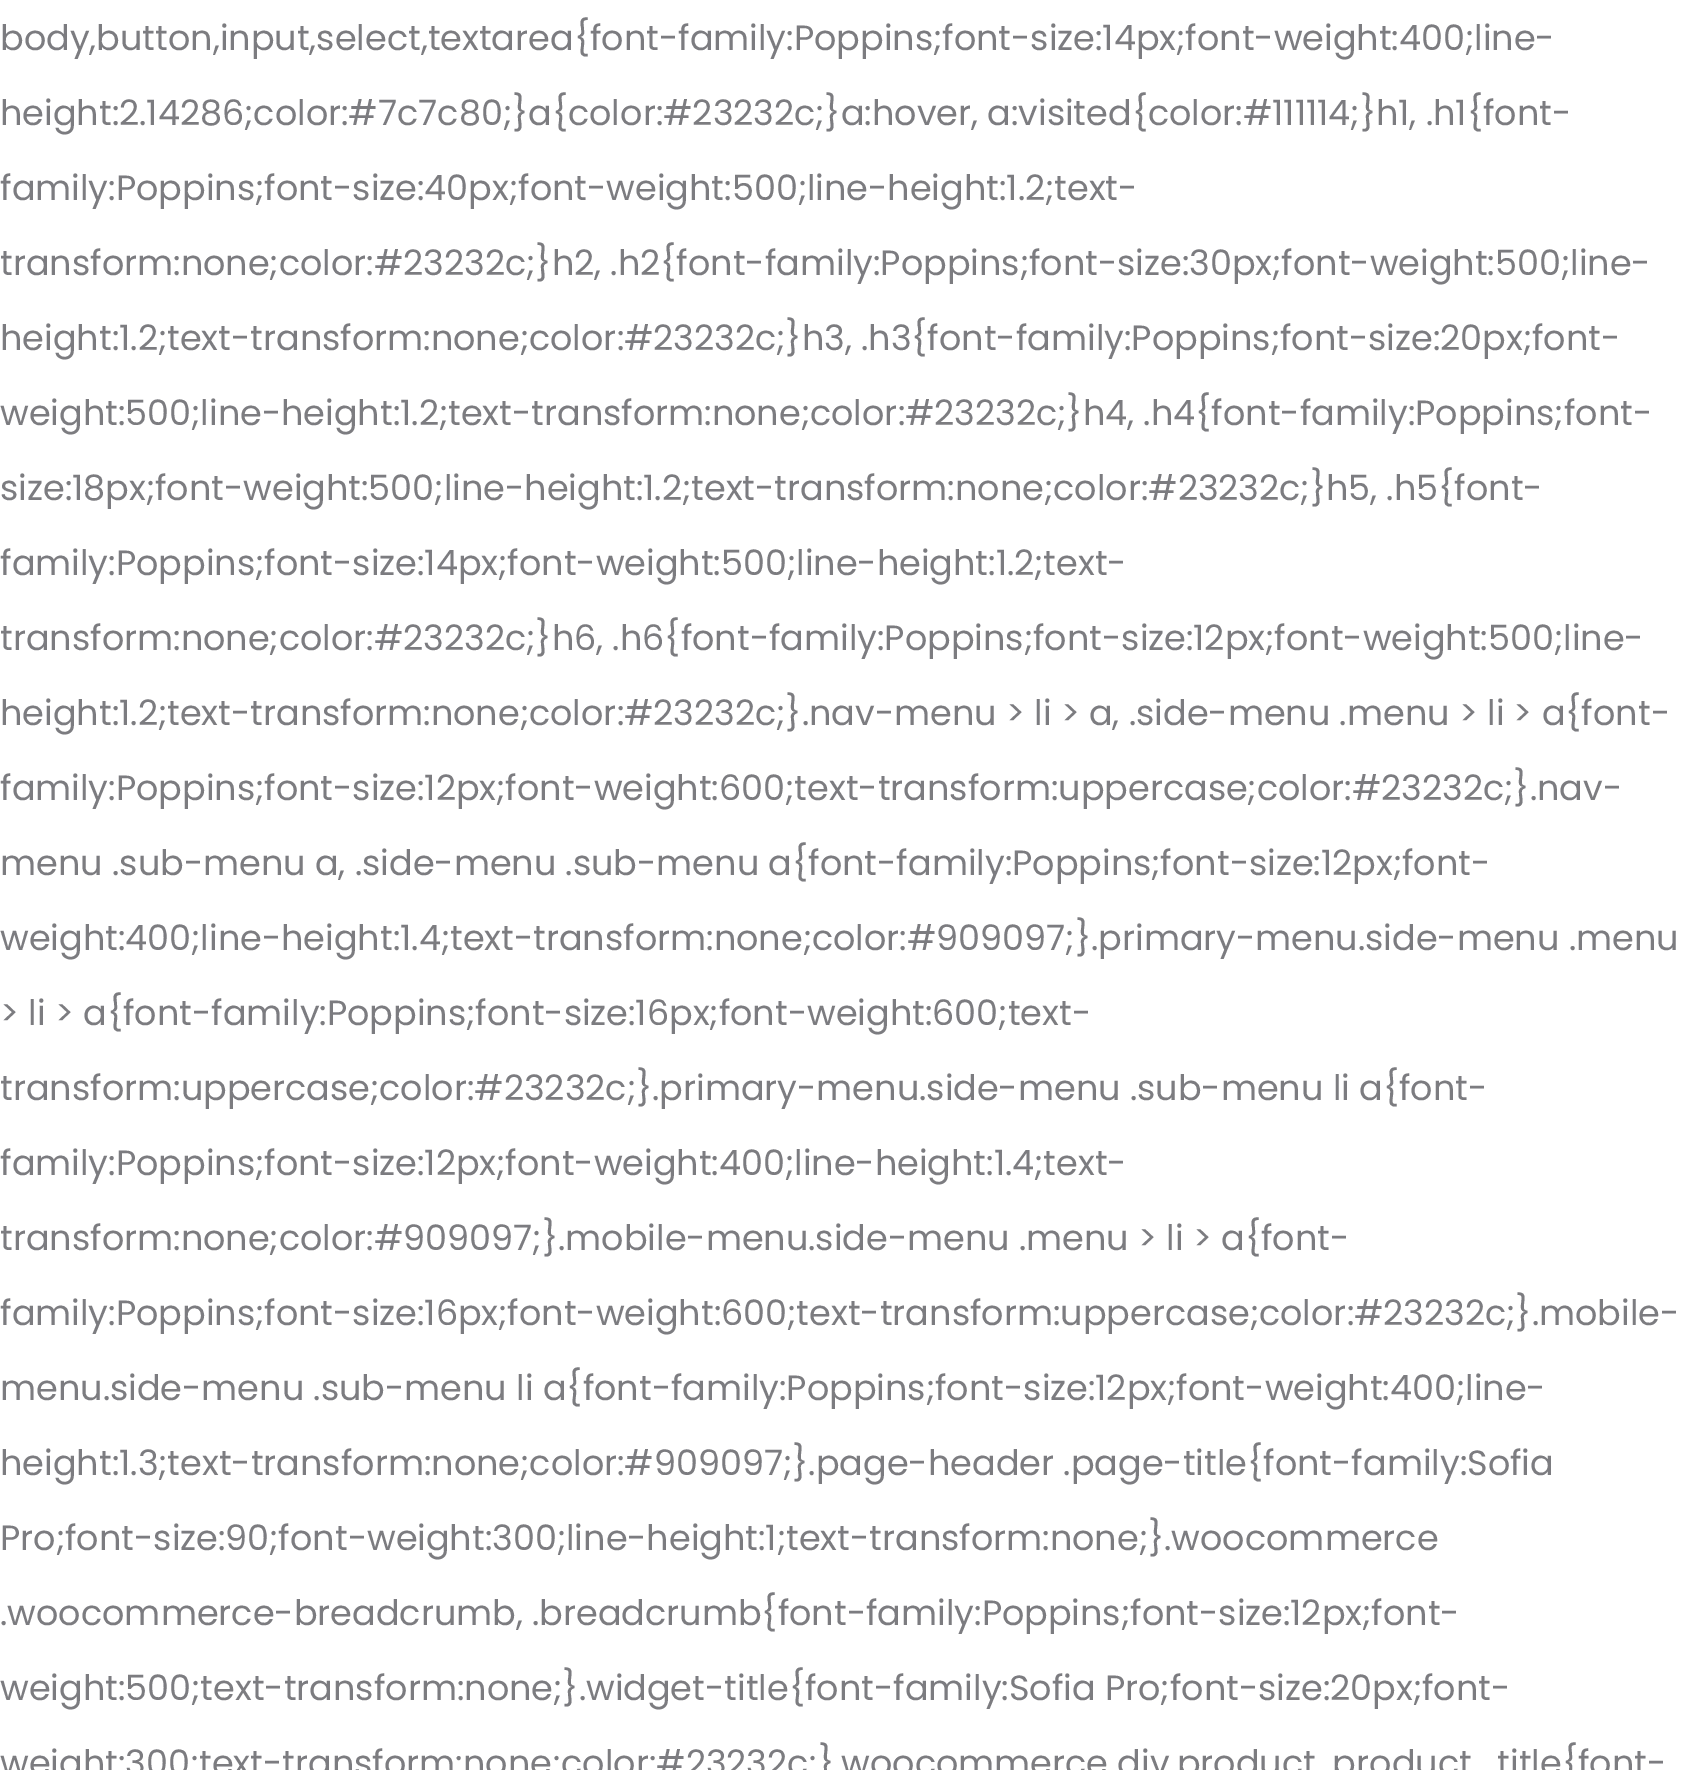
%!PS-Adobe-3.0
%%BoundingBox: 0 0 1697 1770
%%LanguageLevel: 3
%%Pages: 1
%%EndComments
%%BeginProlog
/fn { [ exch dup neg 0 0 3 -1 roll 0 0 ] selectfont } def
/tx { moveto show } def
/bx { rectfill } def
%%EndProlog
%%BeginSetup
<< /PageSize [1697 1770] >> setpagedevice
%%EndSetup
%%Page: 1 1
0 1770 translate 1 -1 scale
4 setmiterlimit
1 setgray
0 0 1697 1770 bx
/Poppins-Regular 35 fn
0.486 0.486 0.502 setrgbcolor
(body,button,input,select,textarea{font-family:Poppins;font-size:14px;font-weight:400;line-) 0 50 tx
(height:2.14286;color:#7c7c80;}a{color:#23232c;}a:hover, a:visited{color:#111114;}h1, .h1{font-) 0 125 tx
(family:Poppins;font-size:40px;font-weight:500;line-height:1.2;text-) 0 200 tx
(transform:none;color:#23232c;}h2, .h2{font-family:Poppins;font-size:30px;font-weight:500;line-) 0 275 tx
(height:1.2;text-transform:none;color:#23232c;}h3, .h3{font-family:Poppins;font-size:20px;font-) 0 350 tx
(weight:500;line-height:1.2;text-transform:none;color:#23232c;}h4, .h4{font-family:Poppins;font-) 0 425 tx
(size:18px;font-weight:500;line-height:1.2;text-transform:none;color:#23232c;}h5, .h5{font-) 0 500 tx
(family:Poppins;font-size:14px;font-weight:500;line-height:1.2;text-) 0 575 tx
(transform:none;color:#23232c;}h6, .h6{font-family:Poppins;font-size:12px;font-weight:500;line-) 0 650 tx
(height:1.2;text-transform:none;color:#23232c;}.nav-menu > li > a, .side-menu .menu > li > a{font-) 0 725 tx
(family:Poppins;font-size:12px;font-weight:600;text-transform:uppercase;color:#23232c;}.nav-) 0 800 tx
(menu .sub-menu a, .side-menu .sub-menu a{font-family:Poppins;font-size:12px;font-) 0 875 tx
(weight:400;line-height:1.4;text-transform:none;color:#909097;}.primary-menu.side-menu .menu) 0 950 tx
(> li > a{font-family:Poppins;font-size:16px;font-weight:600;text-) 0 1025 tx
(transform:uppercase;color:#23232c;}.primary-menu.side-menu .sub-menu li a{font-) 0 1100 tx
(family:Poppins;font-size:12px;font-weight:400;line-height:1.4;text-) 0 1175 tx
(transform:none;color:#909097;}.mobile-menu.side-menu .menu > li > a{font-) 0 1250 tx
(family:Poppins;font-size:16px;font-weight:600;text-transform:uppercase;color:#23232c;}.mobile-) 0 1325 tx
(menu.side-menu .sub-menu li a{font-family:Poppins;font-size:12px;font-weight:400;line-) 0 1400 tx
(height:1.3;text-transform:none;color:#909097;}.page-header .page-title{font-family:Sofia) 0 1475 tx
(Pro;font-size:90;font-weight:300;line-height:1;text-transform:none;}.woocommerce) 0 1550 tx
(.woocommerce-breadcrumb, .breadcrumb{font-family:Poppins;font-size:12px;font-) 0 1625 tx
(weight:500;text-transform:none;}.widget-title{font-family:Sofia Pro;font-size:20px;font-) 0 1700 tx
(weight:300;text-transform:none;color:#23232c;}.woocommerce div.product .product_title{font-) 0 1775 tx
showpage
%%EOF
